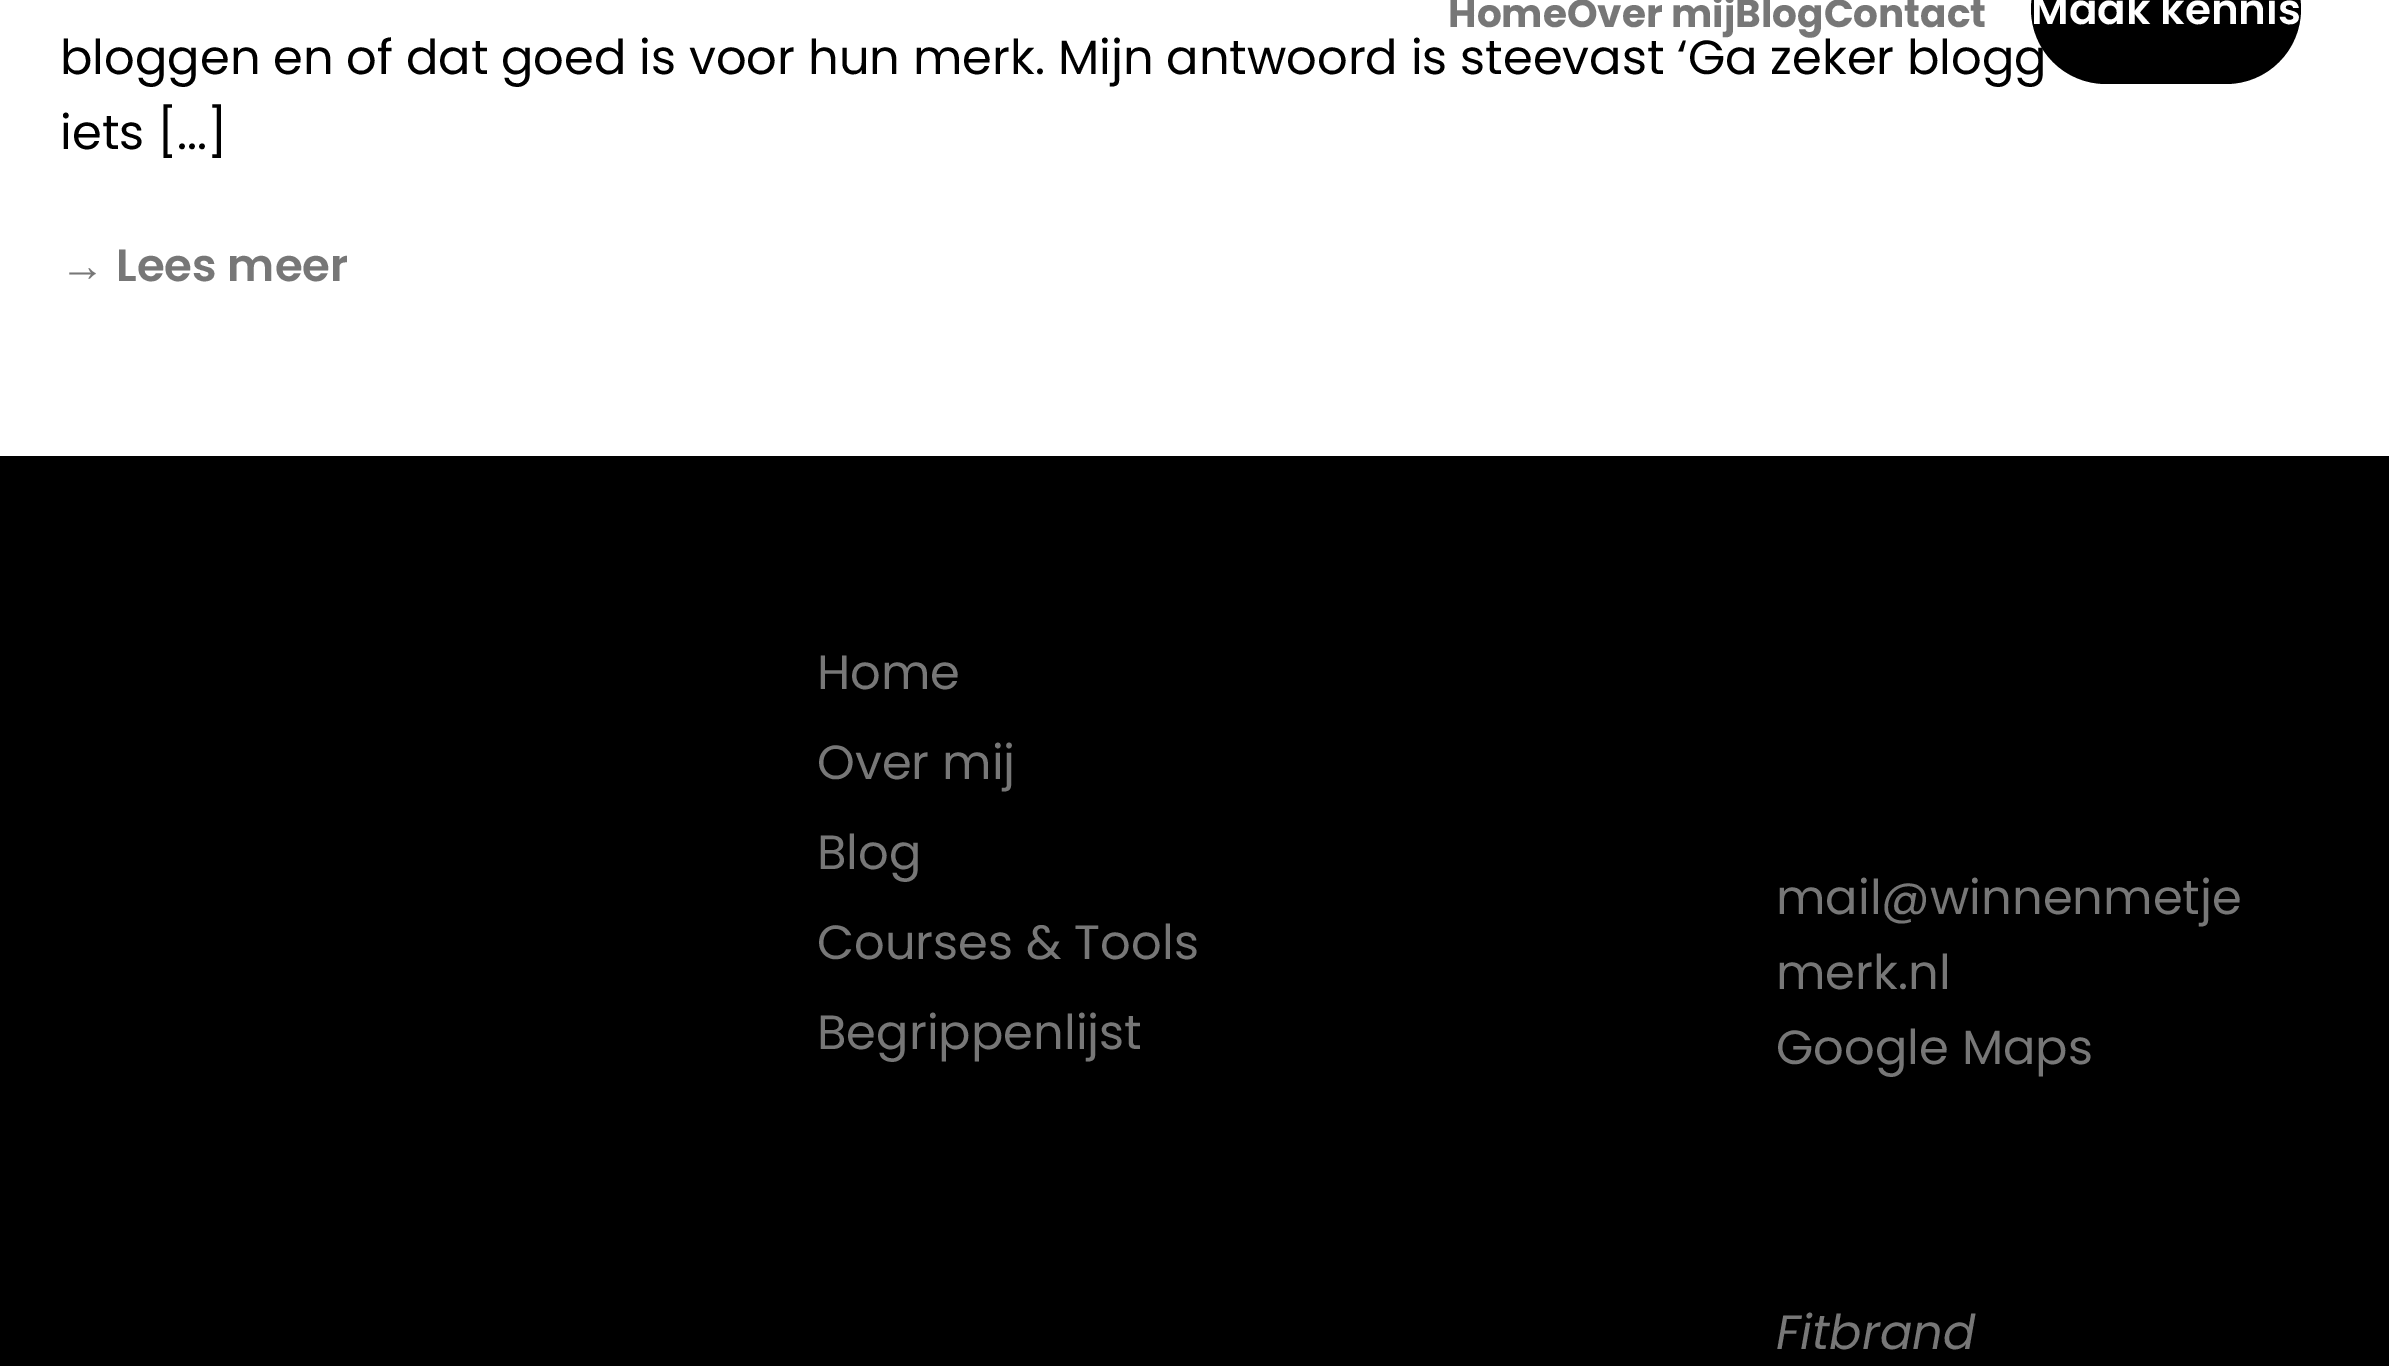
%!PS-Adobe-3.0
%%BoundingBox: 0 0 2389 1366
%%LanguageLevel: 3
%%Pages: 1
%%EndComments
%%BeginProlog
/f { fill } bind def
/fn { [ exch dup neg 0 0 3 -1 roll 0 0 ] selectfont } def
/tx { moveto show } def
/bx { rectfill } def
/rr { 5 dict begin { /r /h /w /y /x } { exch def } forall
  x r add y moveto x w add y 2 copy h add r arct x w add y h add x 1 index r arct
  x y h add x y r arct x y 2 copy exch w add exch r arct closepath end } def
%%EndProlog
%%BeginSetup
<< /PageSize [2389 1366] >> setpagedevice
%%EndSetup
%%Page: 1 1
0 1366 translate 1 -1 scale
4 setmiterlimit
1 setgray
0 0 2389 1366 bx
/Poppins-Bold 39 fn
0.467 setgray
(HomeOver mijBlogContact) 1448 27 tx
0 setgray
2031 -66 270 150 75 rr f
/Poppins-SemiBold 42 fn
1 setgray
(Maak kennis) 2031 24 tx
/Poppins-Regular 48 fn
0 setgray
(bloggen en of dat goed is voor hun merk. Mijn antwoord is steevast ‘Ga zeker blogg) 60 74 tx
(iets [...]) 60 149 tx
/LiberationSerif-Bold 45 fn
0.467 setgray
(→) 60 281 tx
/Poppins-SemiBold 45 fn
(Lees meer) 116 281 tx
0 setgray
0 456 2389 910 bx
/Poppins-Regular 48 fn
0.467 setgray
(Home) 817 689 tx
(Over mij) 817 779 tx
(Blog) 817 869 tx
(Courses & Tools) 817 959 tx
(Begrippenlijst) 817 1049 tx
(mail@winnenmetje) 1776 914 tx
(merk.nl) 1776 989 tx
(Google Maps) 1776 1064 tx
/Poppins-Italic 48 fn
(Fitbrand) 1776 1349 tx
showpage
%%EOF
